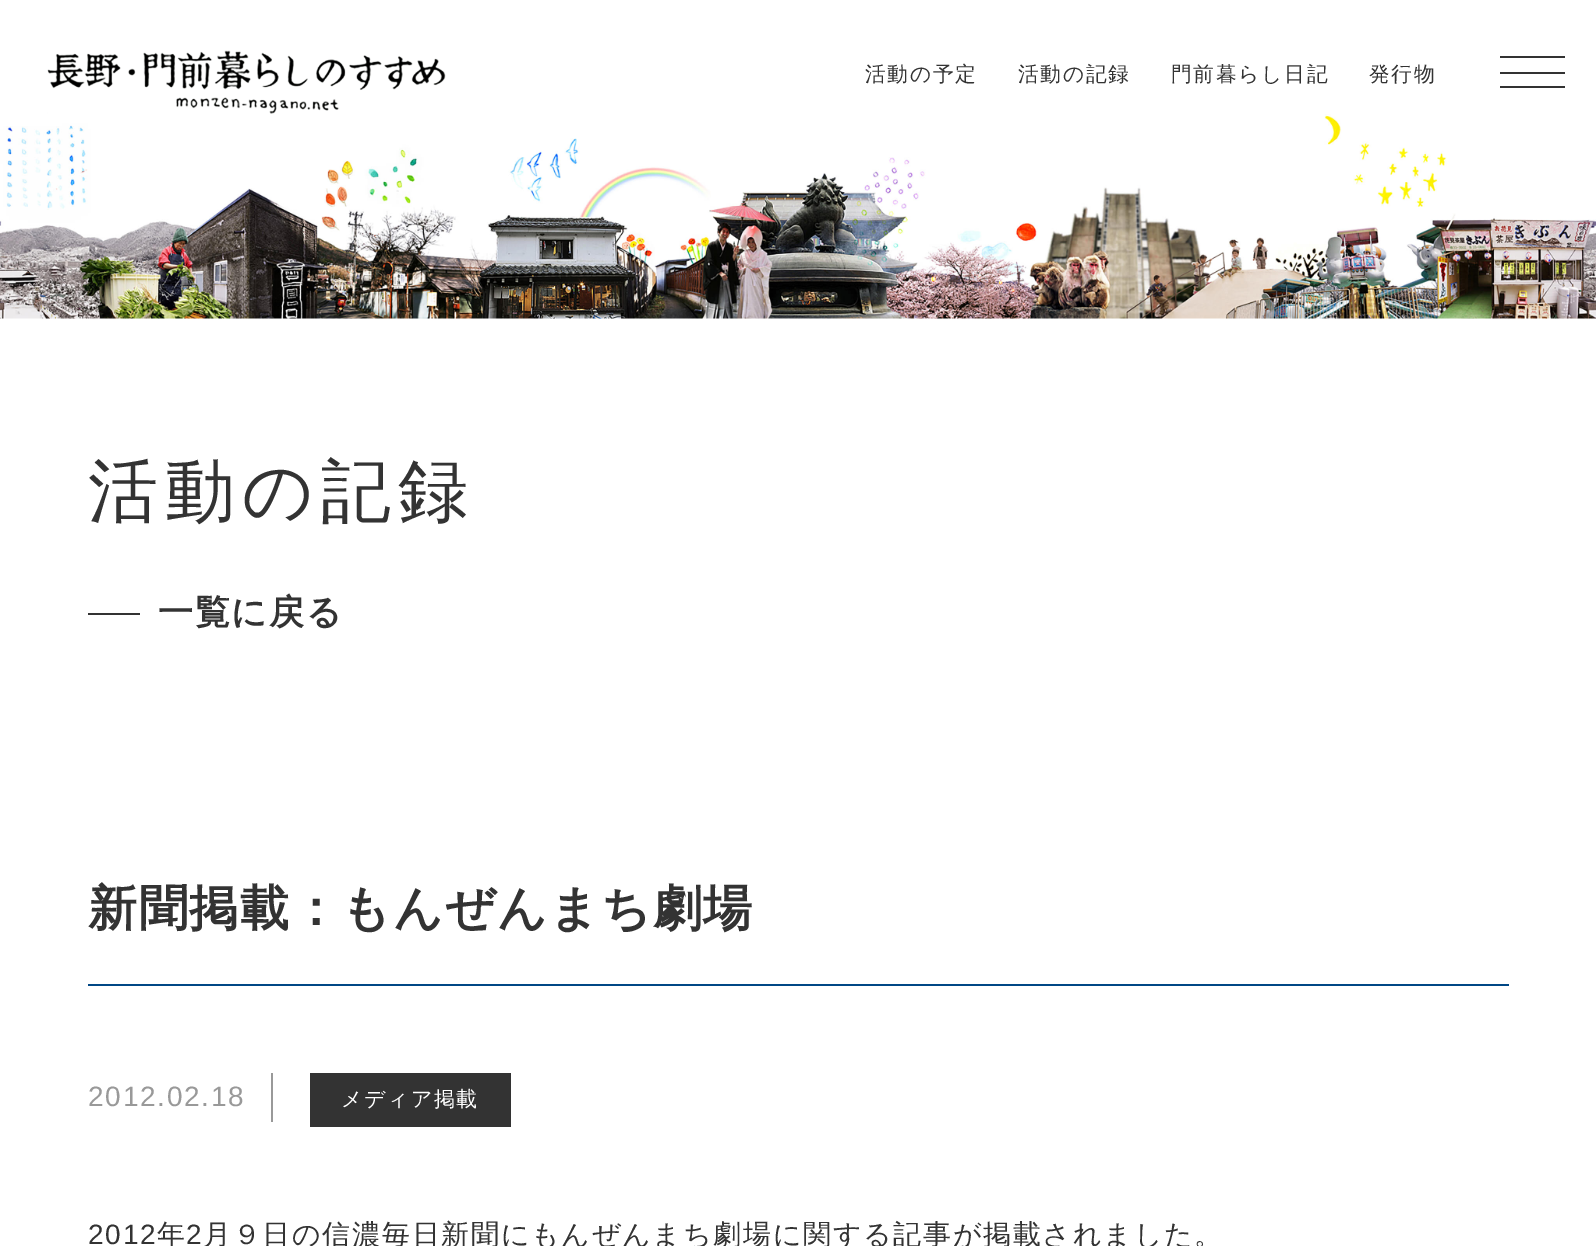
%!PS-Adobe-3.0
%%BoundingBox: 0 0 1596 1246
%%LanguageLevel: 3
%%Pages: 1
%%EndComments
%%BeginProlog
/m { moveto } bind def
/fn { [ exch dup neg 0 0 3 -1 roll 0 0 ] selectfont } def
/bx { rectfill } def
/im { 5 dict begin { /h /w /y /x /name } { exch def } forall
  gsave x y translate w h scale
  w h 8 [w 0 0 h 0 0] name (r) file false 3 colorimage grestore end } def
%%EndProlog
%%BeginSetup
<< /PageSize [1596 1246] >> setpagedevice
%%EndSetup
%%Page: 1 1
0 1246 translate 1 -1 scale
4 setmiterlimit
1 setgray
0 0 1596 1246 bx
(image0.raw) 0 114 1596 205 im
(image1.raw) 47 50 399 64 im
/WenQuanYiZenHei-Medium 20.75 fn
0.2 setgray
865 81 m 1.7 0 (活動の予定) ashow
1018 81 m 1.7 0 (活動の記録) ashow
1171 81 m 1.7 0 (門前暮らし日記) ashow
1369 81 m 1.7 0 (発行物) ashow
/WenQuanYiZenHei-Medium 70 fn
88 515 m 7 0 (活動の記録) ashow
88 613 52 2 bx
/WenQuanYiZenHei-Bold 35 fn
158 624 m 1.7 0 (一覧に戻る) ashow
0 0.278 0.522 setrgbcolor
88 984 1421 2 bx
/WenQuanYiZenHei-Bold 49 fn
0.2 setgray
88 925 m 1.7 0 (新聞掲載：もんぜんまち劇場) ashow
/LiberationSans-Regular 28 fn
0.6 setgray
88 1106 m 1.7 0 (2012.02.18) ashow
271 1073 2 49 bx
0.2 setgray
310 1073 201 54 bx
/WenQuanYiZenHei-Medium 21 fn
1 setgray
341 1106 m 1.7 0 (メディア掲載) ashow
/LiberationSans-Regular 28 fn
0.2 setgray
88 1244 m 1.7 0 (2012) ashow
/WenQuanYiZenHei-Medium 28 fn
157 1244 m 1.7 0 (年) ashow
/LiberationSans-Regular 28 fn
186 1244 m 1.7 0 (2) ashow
/WenQuanYiZenHei-Medium 28 fn
203 1244 m 1.7 0 (月９日の信濃毎日新聞にもんぜんまち劇場に関する記事が掲載されました。) ashow
1500 56 65 2 bx
1500 72 65 2 bx
1500 86 65 2 bx
showpage
%%EOF
